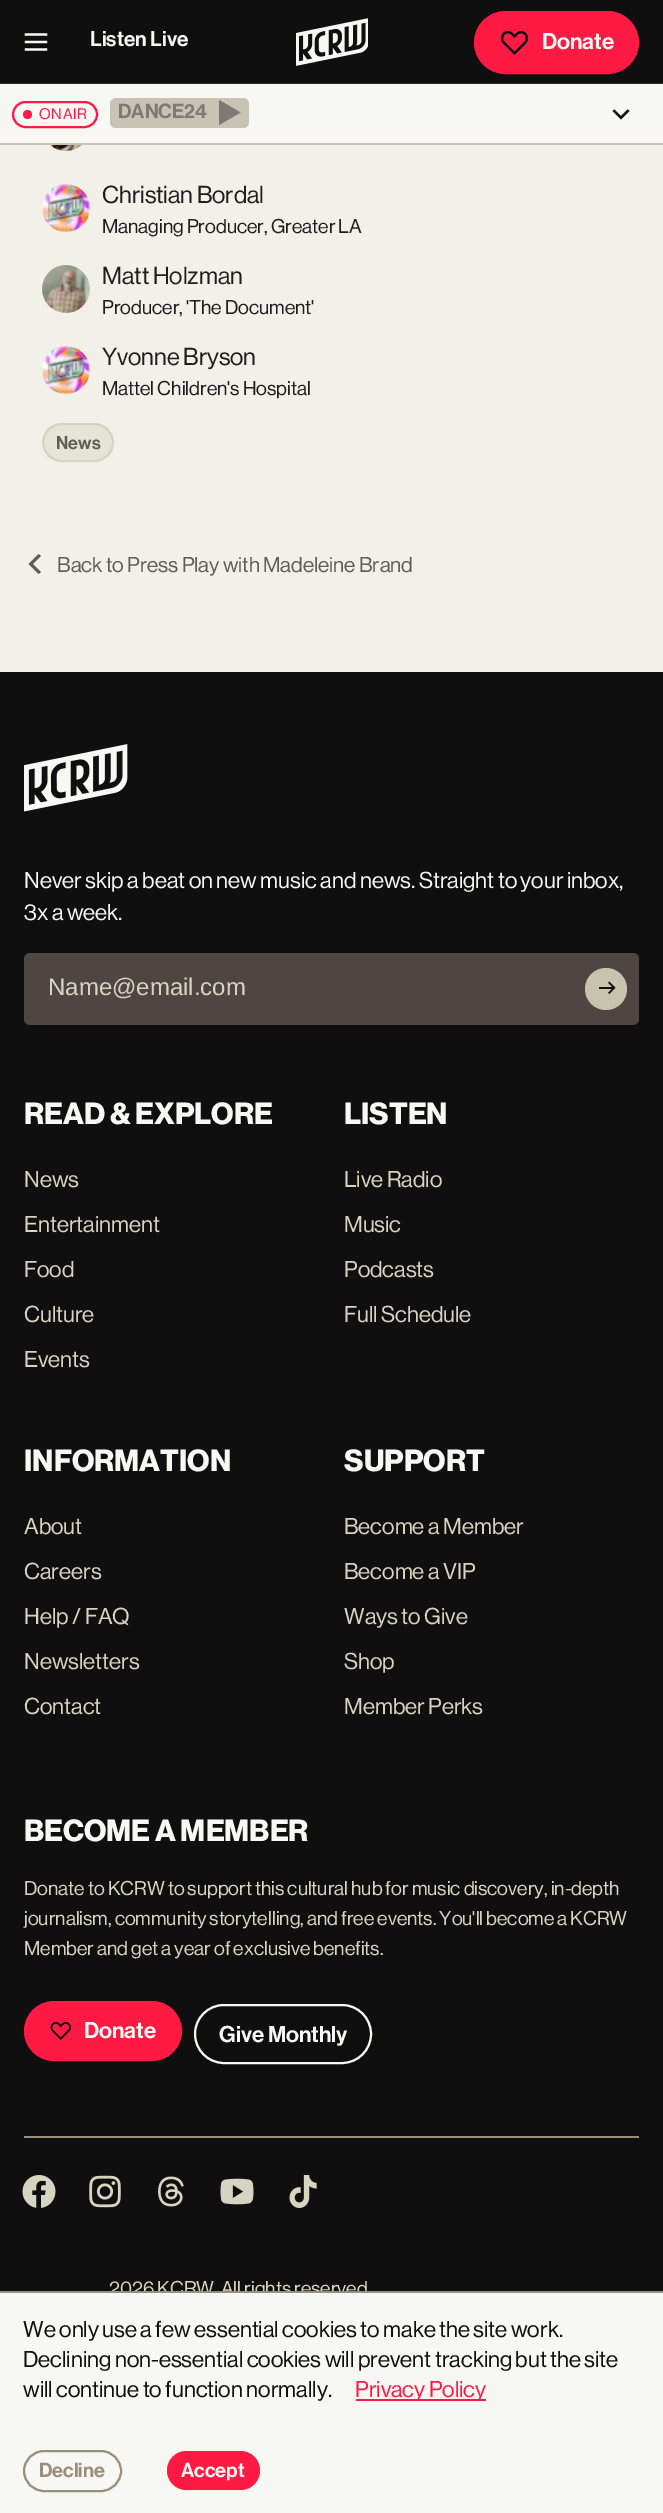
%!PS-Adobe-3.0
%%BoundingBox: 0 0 663 2513
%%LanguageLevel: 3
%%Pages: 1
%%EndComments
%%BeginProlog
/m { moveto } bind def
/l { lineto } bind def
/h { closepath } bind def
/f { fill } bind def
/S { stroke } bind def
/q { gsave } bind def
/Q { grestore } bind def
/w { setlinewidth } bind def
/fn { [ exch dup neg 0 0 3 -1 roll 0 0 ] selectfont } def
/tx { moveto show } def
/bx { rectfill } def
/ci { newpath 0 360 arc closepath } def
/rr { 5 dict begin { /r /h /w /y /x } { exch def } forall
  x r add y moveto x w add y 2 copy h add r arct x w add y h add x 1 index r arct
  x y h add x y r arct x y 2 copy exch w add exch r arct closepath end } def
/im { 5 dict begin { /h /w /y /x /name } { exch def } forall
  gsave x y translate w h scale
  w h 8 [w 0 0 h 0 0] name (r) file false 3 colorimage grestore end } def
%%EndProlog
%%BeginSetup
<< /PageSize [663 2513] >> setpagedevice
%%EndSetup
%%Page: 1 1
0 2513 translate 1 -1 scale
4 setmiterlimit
0.945 0.945 0.918 setrgbcolor
0 0 663 2513 bx
0.059 setgray
0 0 663 83 bx
0.169 0.169 0.165 setrgbcolor
0 83 663 1 bx
(image0.raw) 24 33 24 18 im
/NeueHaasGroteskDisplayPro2-Medium 21 fn
0.969 0.969 0.953 setrgbcolor
(Listen Live) 90 46 tx
(image1.raw) 296 18 72 48 im
1 0.102 0.267 setrgbcolor
475 12 163 61 30.5 rr q f Q
2 w
S
(image2.raw) 500 30 29 25 im
/NeueHaasGroteskDisplayPro2-Medium 22.5 fn
0.969 0.969 0.953 setrgbcolor
(Donate) 542 49 tx
0 84 663 59 bx
0.78 0.769 0.682 setrgbcolor
0 143 663 2 bx
1 0.102 0.267 setrgbcolor
13 102 84 25 12.5 rr S
27.5 114.5 4.5 ci f
/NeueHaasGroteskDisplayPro-Medium 15 fn
(ON AIR) 39 119 tx
0.78 0.769 0.706 setrgbcolor
110 98 139 30 6 rr f
/NeueHaasGroteskDisplayPro2-Medium 20 fn
0.494 0.475 0.463 setrgbcolor
(DANCE24) 118 118 tx
219 100 m 219 125 l 240.5 112.5 l h f
0.063 0.059 0.059 setrgbcolor
612.5 111 m 614.5 109.5 l 621 116 l 627.5 109.5 l 629.5 111 l 621 119.5 l h eofill
(image3.raw) 50 145 32 6 im
(image4.raw) 42 184 48 48 im
/NeueHaasGroteskDisplayPro-Medium 24 fn
0.125 0.118 0.114 setrgbcolor
(Christian Bordal) 102 203 tx
/NeueHaasGroteskDisplayPro-Medium 19.5 fn
(Managing Producer, Greater LA) 102 233 tx
(image5.raw) 42 265 48 48 im
/NeueHaasGroteskDisplayPro-Medium 24 fn
(Matt Holzman) 102 284 tx
/NeueHaasGroteskDisplayPro-Medium 19.5 fn
(Producer, 'The Document') 102 314 tx
(image4.raw) 42 346 48 48 im
/NeueHaasGroteskDisplayPro-Medium 24 fn
(Yvonne Bryson) 102 365 tx
/NeueHaasGroteskDisplayPro-Medium 19.5 fn
(Mattel Children's Hospital) 102 395 tx
0.894 0.894 0.843 setrgbcolor
43 424 70 37 18.5 rr q f Q
0.839 0.835 0.761 setrgbcolor
S
/NeueHaasGroteskDisplayPro2-Medium 18 fn
0.396 0.361 0.325 setrgbcolor
(News) 56 449 tx
38.5 554 m 41 556 l 33 564 l 41 572 l 38.5 574 l 28.5 564 l h eofill
/NeueHaasGroteskDisplayPro-Medium 21 fn
(Back to Press Play with Madeleine Brand) 57 572 tx
0.059 setgray
0 672 663 1619 bx
(image6.raw) 24 744 104 68 im
/NeueHaasGroteskDisplayPro-Medium 22.5 fn
0.969 0.969 0.953 setrgbcolor
(Never skip a beat on new music and news. Straight to your inbox,) 24 888 tx
(3x a week.) 24 920 tx
0.302 0.275 0.259 setrgbcolor
24 953 615 72 6 rr f
/LiberationSans-Regular 24 fn
0.839 0.835 0.761 setrgbcolor
(Name@email.com) 48 995 tx
0.78 0.769 0.682 setrgbcolor
606 989 21 ci f
(image7.raw) 599 981 17 13 im
/NeueHaasGroteskDisplayPro-Bold 30 fn
0.969 0.969 0.953 setrgbcolor
(READ & EXPLORE) 24 1124 tx
/NeueHaasGroteskDisplayPro-Medium 22.5 fn
0.839 0.835 0.761 setrgbcolor
(News) 24 1187 tx
(Entertainment) 24 1232 tx
(Food) 24 1277 tx
(Culture) 24 1322 tx
(Events) 24 1367 tx
/NeueHaasGroteskDisplayPro-Bold 30 fn
0.969 0.969 0.953 setrgbcolor
(LISTEN) 344 1124 tx
/NeueHaasGroteskDisplayPro-Medium 22.5 fn
0.839 0.835 0.761 setrgbcolor
(Live Radio) 344 1187 tx
(Music) 344 1232 tx
(Podcasts) 344 1277 tx
(Full Schedule) 344 1322 tx
/NeueHaasGroteskDisplayPro-Bold 30 fn
0.969 0.969 0.953 setrgbcolor
(INFORMATION) 24 1471 tx
/NeueHaasGroteskDisplayPro-Medium 22.5 fn
0.839 0.835 0.761 setrgbcolor
(About) 24 1534 tx
(Careers) 24 1579 tx
(Help / FAQ) 24 1624 tx
(Newsletters) 24 1669 tx
(Contact) 24 1714 tx
/NeueHaasGroteskDisplayPro-Bold 30 fn
0.969 0.969 0.953 setrgbcolor
(SUPPORT) 344 1471 tx
/NeueHaasGroteskDisplayPro-Medium 22.5 fn
0.839 0.835 0.761 setrgbcolor
(Become a Member) 344 1534 tx
(Become a VIP) 344 1579 tx
(Ways to Give) 344 1624 tx
(Shop) 344 1669 tx
(Member Perks) 344 1714 tx
/NeueHaasGroteskDisplayPro-Bold 30 fn
0.969 0.969 0.953 setrgbcolor
(BECOME A MEMBER) 24 1841 tx
/NeueHaasGroteskDisplayPro-Medium 19.5 fn
0.839 0.835 0.761 setrgbcolor
(Donate to KCRW to support this cultural hub for music discovery, in-depth) 24 1895 tx
(journalism, community storytelling, and free events. You'll become a KCRW) 24 1925 tx
(Member and get a year of exclusive benefits.) 24 1955 tx
1 0.102 0.267 setrgbcolor
25 2002 156 58 29 rr q f Q
S
(image8.raw) 50 2021 21 19 im
/NeueHaasGroteskDisplayPro2-Medium 22.5 fn
0.969 0.969 0.953 setrgbcolor
(Donate) 84 2038 tx
195 2005 176 58 29 rr S
(Give Monthly) 219 2042 tx
0.604 0.565 0.475 setrgbcolor
24 2136 615 2 bx
(image9.raw) 22 2175 34 33 im
(image10.raw) 89 2175 32 33 im
(image11.raw) 158 2176 26 31 im
(image12.raw) 220 2178 34 27 im
(image13.raw) 289 2175 28 33 im
/NeueHaasGroteskDisplayPro-Medium 19.5 fn
0.839 0.835 0.761 setrgbcolor
(2026 KCRW. All rights reserved) 109 2295 tx
0.969 0.969 0.953 setrgbcolor
0 2293 663 220 bx
0.604 0.565 0.475 setrgbcolor
0 2291 663 2 bx
/NeueHaasGroteskDisplayPro-Medium 22.5 fn
0.059 setgray
(We only use a few essential cookies to make the site work.) 23 2337 tx
(Declining non-essential cookies will prevent tracking but the site) 23 2367 tx
(will continue to function normally.) 23 2397 tx
1 0.102 0.267 setrgbcolor
356 2399 130 2 bx
(Privacy Policy) 355 2397 tx
0.604 0.565 0.475 setrgbcolor
24 2451 97 40 20 rr S
/NeueHaasGroteskDisplayPro2-Medium 20 fn
(Decline) 39 2477 tx
1 0.102 0.267 setrgbcolor
167 2451 93 39 19.5 rr f
0.969 0.969 0.953 setrgbcolor
(Accept) 181 2477 tx
showpage
%%EOF
